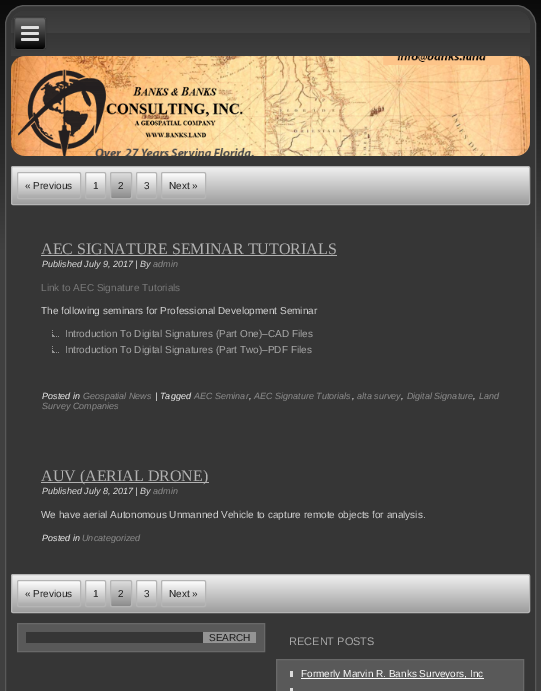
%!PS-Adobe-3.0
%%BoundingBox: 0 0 541 691
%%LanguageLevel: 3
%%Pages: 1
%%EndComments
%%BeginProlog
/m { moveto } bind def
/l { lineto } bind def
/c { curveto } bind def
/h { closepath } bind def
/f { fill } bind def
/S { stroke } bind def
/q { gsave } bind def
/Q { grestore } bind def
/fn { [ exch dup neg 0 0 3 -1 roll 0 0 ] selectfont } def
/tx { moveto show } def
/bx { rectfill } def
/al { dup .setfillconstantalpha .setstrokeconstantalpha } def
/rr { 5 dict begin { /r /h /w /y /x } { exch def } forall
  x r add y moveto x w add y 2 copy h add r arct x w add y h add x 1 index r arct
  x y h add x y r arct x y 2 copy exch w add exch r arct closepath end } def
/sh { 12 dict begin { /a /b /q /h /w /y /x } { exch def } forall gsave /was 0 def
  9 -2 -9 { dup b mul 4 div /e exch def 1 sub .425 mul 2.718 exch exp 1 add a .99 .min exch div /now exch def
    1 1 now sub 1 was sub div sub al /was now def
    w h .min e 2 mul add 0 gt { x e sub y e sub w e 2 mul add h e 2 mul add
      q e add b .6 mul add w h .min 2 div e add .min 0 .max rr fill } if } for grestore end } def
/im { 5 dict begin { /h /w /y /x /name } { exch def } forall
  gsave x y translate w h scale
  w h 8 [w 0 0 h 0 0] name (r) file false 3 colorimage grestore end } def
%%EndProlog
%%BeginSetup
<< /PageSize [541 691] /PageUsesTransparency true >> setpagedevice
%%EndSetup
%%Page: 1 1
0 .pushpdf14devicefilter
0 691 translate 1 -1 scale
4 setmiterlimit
1 setgray
0 0 541 691 bx
q 0 0 m 541 0 l 541 691 l 0 691 l h clip newpath
<< /ShadingType 2 /ColorSpace /DeviceRGB /Coords [270 0 271 691] /Extend [true true] /Function << /FunctionType 3 /Domain [0 1] /Functions [<< /FunctionType 2 /Domain [0 1] /C0 [0.039 0.039 0.039] /C1 [0.251 0.251 0.251] /N 1 >> << /FunctionType 2 /Domain [0 1] /C0 [0.251 0.251 0.251] /C1 [0.251 0.251 0.251] /N 1 >>] /Bounds [0.36] /Encode [0 1 0 1] >> >> shfill Q
0.212 setgray
5.5 5.5 530 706 19.5 rr q f Q
0.349 setgray
S
q 25 11 m 516 11 l 523.5 11 530 17.5 530 25 c 530 56 l 11 56 l 11 25 l 11 17.5 17.5 11 25 11 c h clip newpath
<< /ShadingType 2 /ColorSpace /DeviceRGB /Coords [271 11 271 56] /Extend [true true] /Function << /FunctionType 3 /Domain [0 1] /Functions [<< /FunctionType 2 /Domain [0 1] /C0 [0.224 0.224 0.224] /C1 [0.255 0.255 0.255] /N 1 >> << /FunctionType 2 /Domain [0 1] /C0 [0.212 0.212 0.212] /C1 [0.243 0.243 0.243] /N 1 >>] /Bounds [0.5] /Encode [0 1 0 1] >> >> shfill Q
0 setgray
14 17 32 33 3 1.5 0.2 sh
q
14 17 32 33 3 rr clip newpath
q 14 18 m 46 18 l 46 49 l 14 49 l h clip newpath
<< /ShadingType 2 /ColorSpace /DeviceRGB /Coords [30 18 30 49] /Extend [true true] /Function << /FunctionType 2 /Domain [0 1] /C0 [0.439 0.439 0.439] /C1 [0 0 0] /N 1 >> >> shfill Q
Q
0.251 setgray
14.5 17.5 31 32 2.5 rr S
0.878 setgray
21 26 18 3 1.5 rr f
21 32 18 3 1.5 rr f
21 38 18 3 1.5 rr f
(image0.raw) 11 56 519 100 im
q 12 167 m 529 167 l 529 204 l 12 204 l h clip newpath
<< /ShadingType 2 /ColorSpace /DeviceRGB /Coords [271 167 271 204] /Extend [true true] /Function << /FunctionType 2 /Domain [0 1] /C0 [0.941 0.941 0.941] /C1 [0.62 0.62 0.62] /N 1 >> >> shfill Q
0.71 setgray
11.5 166.5 518 38 1.5 rr S
q 18 173 m 80 173 l 80 195 l 18 195 l h clip newpath
<< /ShadingType 2 /ColorSpace /DeviceRGB /Coords [49 173 49 198] /Extend [true true] /Function << /FunctionType 2 /Domain [0 1] /C0 [1 1 1] /C1 [0.671 0.671 0.671] /N 1 >> >> shfill Q
17.5 172.5 63 26 1.5 rr S
/LiberationSans-Regular 10 fn
0.129 setgray
(« Previous) 25 189 tx
q 86 173 m 105 173 l 105 195 l 86 195 l h clip newpath
<< /ShadingType 2 /ColorSpace /DeviceRGB /Coords [96 173 96 198] /Extend [true true] /Function << /FunctionType 2 /Domain [0 1] /C0 [1 1 1] /C1 [0.671 0.671 0.671] /N 1 >> >> shfill Q
0.71 setgray
85.5 172.5 20 26 1.5 rr S
0.129 setgray
(1) 93 189 tx
q 111 173 m 131 173 l 131 198 l 111 198 l h clip newpath
<< /ShadingType 2 /ColorSpace /DeviceRGB /Coords [121 173 121 198] /Extend [true true] /Function << /FunctionType 2 /Domain [0 1] /C0 [0.871 0.871 0.871] /C1 [0.549 0.549 0.549] /N 1 >> >> shfill Q
0.71 setgray
110.5 172.5 21 26 1.5 rr S
0.102 setgray
(2) 118 189 tx
q 137 173 m 156 173 l 156 195 l 137 195 l h clip newpath
<< /ShadingType 2 /ColorSpace /DeviceRGB /Coords [147 173 147 198] /Extend [true true] /Function << /FunctionType 2 /Domain [0 1] /C0 [1 1 1] /C1 [0.671 0.671 0.671] /N 1 >> >> shfill Q
0.71 setgray
136.5 172.5 20 26 1.5 rr S
0.129 setgray
(3) 144 189 tx
q 162 173 m 205 173 l 205 195 l 162 195 l h clip newpath
<< /ShadingType 2 /ColorSpace /DeviceRGB /Coords [184 173 184 198] /Extend [true true] /Function << /FunctionType 2 /Domain [0 1] /C0 [1 1 1] /C1 [0.671 0.671 0.671] /N 1 >> >> shfill Q
0.71 setgray
161.5 172.5 44 26 1.5 rr S
0.129 setgray
(Next ») 169 189 tx
/LiberationSerif-Regular 16 fn
0.698 setgray
(AEC SIGNATURE SEMINAR TUTORIALS) 41 254 tx
41 255 296 1 bx
/LiberationSans-Italic 9 fn
0.878 setgray
(Published July 9, 2017 | By) 42 267 tx
0.549 setgray
(admin) 153 267 tx
/LiberationSans-Regular 10 fn
0.471 setgray
(Link to AEC Signature Tutorials) 41 291 tx
0.831 setgray
(The following seminars for Professional Development Seminar) 41 314 tx
(image1.raw) 52 330 7 7 im
0.659 setgray
(Introduction To Digital Signatures \(Part One\)–CAD Files) 65 337 tx
(image1.raw) 52 346 7 7 im
(Introduction To Digital Signatures \(Part Two\)–PDF Files) 65 353 tx
/LiberationSans-Italic 9 fn
0.941 setgray
(Posted in) 42 399 tx
0.549 setgray
(Geospatial News) 83 399 tx
0.941 setgray
(|) 155 399 tx
(Tagged) 160 399 tx
0.549 setgray
(AEC Seminar) 194 399 tx
0.941 setgray
(,) 249 399 tx
0.549 setgray
(AEC Signature Tutorials) 254 399 tx
0.941 setgray
(,) 352 399 tx
0.549 setgray
(alta survey) 357 399 tx
(Digital Signature) 407 399 tx
(Land) 479 399 tx
0.941 setgray
(,) 401 399 tx
(,) 473 399 tx
0.549 setgray
(Survey Companies) 42 409 tx
0.698 setgray
41 482 168 1 bx
/LiberationSerif-Regular 16 fn
(AUV \(AERIAL DRONE\)) 41 481 tx
/LiberationSans-Italic 9 fn
0.878 setgray
(Published July 8, 2017 | By) 42 494 tx
0.549 setgray
(admin) 153 494 tx
/LiberationSans-Regular 10 fn
0.831 setgray
(We have aerial Autonomous Unmanned Vehicle to capture remote objects for analysis.) 41 518 tx
/LiberationSans-Italic 9 fn
0.941 setgray
(Posted in) 42 541 tx
0.549 setgray
(Uncategorized) 82 541 tx
q 12 575 m 529 575 l 529 612 l 12 612 l h clip newpath
<< /ShadingType 2 /ColorSpace /DeviceRGB /Coords [271 575 271 612] /Extend [true true] /Function << /FunctionType 2 /Domain [0 1] /C0 [0.941 0.941 0.941] /C1 [0.62 0.62 0.62] /N 1 >> >> shfill Q
0.71 setgray
11.5 574.5 518 38 1.5 rr S
q 18 581 m 80 581 l 80 603 l 18 603 l h clip newpath
<< /ShadingType 2 /ColorSpace /DeviceRGB /Coords [49 581 49 606] /Extend [true true] /Function << /FunctionType 2 /Domain [0 1] /C0 [1 1 1] /C1 [0.671 0.671 0.671] /N 1 >> >> shfill Q
17.5 580.5 63 26 1.5 rr S
/LiberationSans-Regular 10 fn
0.129 setgray
(« Previous) 25 597 tx
q 86 581 m 105 581 l 105 603 l 86 603 l h clip newpath
<< /ShadingType 2 /ColorSpace /DeviceRGB /Coords [96 581 96 606] /Extend [true true] /Function << /FunctionType 2 /Domain [0 1] /C0 [1 1 1] /C1 [0.671 0.671 0.671] /N 1 >> >> shfill Q
0.71 setgray
85.5 580.5 20 26 1.5 rr S
0.129 setgray
(1) 93 597 tx
q 111 581 m 131 581 l 131 606 l 111 606 l h clip newpath
<< /ShadingType 2 /ColorSpace /DeviceRGB /Coords [121 581 121 606] /Extend [true true] /Function << /FunctionType 2 /Domain [0 1] /C0 [0.871 0.871 0.871] /C1 [0.549 0.549 0.549] /N 1 >> >> shfill Q
0.71 setgray
110.5 580.5 21 26 1.5 rr S
0.102 setgray
(2) 118 597 tx
q 137 581 m 156 581 l 156 603 l 137 603 l h clip newpath
<< /ShadingType 2 /ColorSpace /DeviceRGB /Coords [147 581 147 606] /Extend [true true] /Function << /FunctionType 2 /Domain [0 1] /C0 [1 1 1] /C1 [0.671 0.671 0.671] /N 1 >> >> shfill Q
0.71 setgray
136.5 580.5 20 26 1.5 rr S
0.129 setgray
(3) 144 597 tx
q 162 581 m 205 581 l 205 603 l 162 603 l h clip newpath
<< /ShadingType 2 /ColorSpace /DeviceRGB /Coords [184 581 184 606] /Extend [true true] /Function << /FunctionType 2 /Domain [0 1] /C0 [1 1 1] /C1 [0.671 0.671 0.671] /N 1 >> >> shfill Q
0.71 setgray
161.5 580.5 44 26 1.5 rr S
0.129 setgray
(Next ») 169 597 tx
0.349 setgray
17.5 623.5 m 264.5 623.5 l 264.5 651.5 l 17.5 651.5 l h q f Q
0.412 setgray
S
0.212 setgray
26 632 177 11 bx
0.58 setgray
203 632 53 11 bx
0.102 setgray
(SEARCH) 209 641 tx
/LiberationSans-Regular 11 fn
0.659 setgray
(RECENT POSTS) 289 645 tx
0.349 setgray
276.5 659.5 m 523.5 659.5 l 523.5 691.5 l 276.5 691.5 l h q f Q
0.412 setgray
S
0.859 setgray
290 671 3 6 bx
0.988 setgray
301 678 183 1 bx
/LiberationSans-Regular 10 fn
(Formerly Marvin R. Banks Surveyors, Inc) 301 677 tx
0.859 setgray
290 688 3 3 bx
.poppdf14devicefilter showpage
%%EOF
